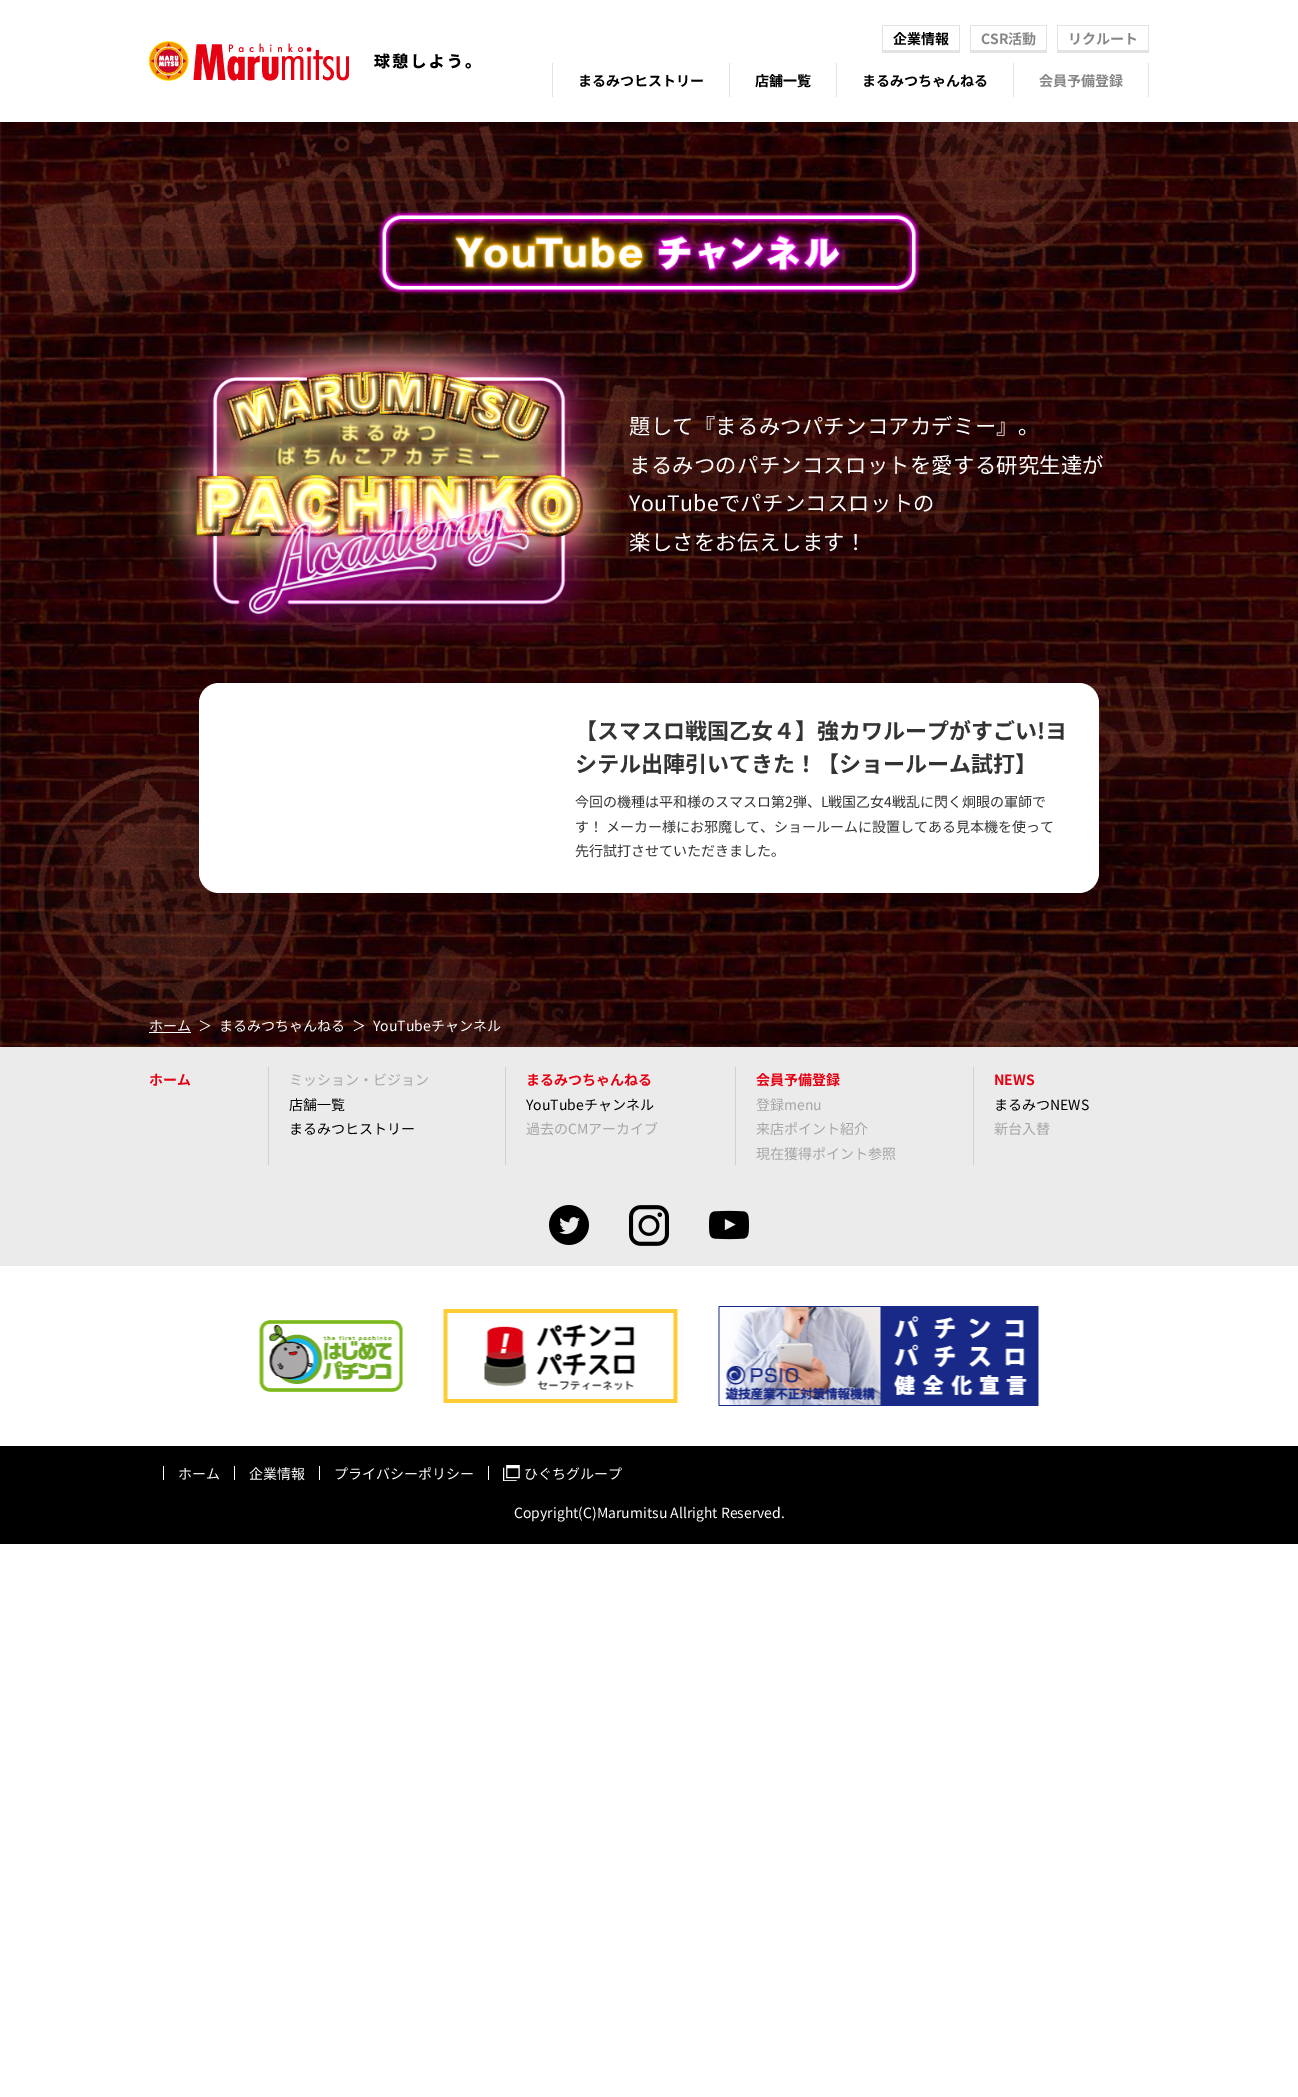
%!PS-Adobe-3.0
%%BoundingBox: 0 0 1298 2097
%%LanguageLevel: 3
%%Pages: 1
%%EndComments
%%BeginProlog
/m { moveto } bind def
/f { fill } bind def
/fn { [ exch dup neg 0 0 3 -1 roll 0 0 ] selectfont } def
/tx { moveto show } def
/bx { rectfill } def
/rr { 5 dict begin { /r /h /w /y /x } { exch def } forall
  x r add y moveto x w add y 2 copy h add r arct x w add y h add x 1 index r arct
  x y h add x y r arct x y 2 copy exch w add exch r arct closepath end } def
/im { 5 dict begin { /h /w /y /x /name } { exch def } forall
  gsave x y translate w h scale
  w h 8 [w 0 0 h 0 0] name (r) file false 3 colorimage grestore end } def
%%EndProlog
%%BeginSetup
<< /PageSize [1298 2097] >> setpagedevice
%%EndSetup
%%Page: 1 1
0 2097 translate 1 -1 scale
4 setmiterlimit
1 setgray
0 0 1298 2097 bx
(image0.raw) 149 41 322 40 im
0.89 setgray
882 25 78 1 bx
959 25 1 28 bx
882 50 78 3 bx
882 25 1 28 bx
/NotoSansJP-Bold 14 fn
0 setgray
(企業情報) 893 44 tx
0.89 setgray
970 25 77 1 bx
1046 25 1 28 bx
970 50 77 3 bx
970 25 1 28 bx
0.525 setgray
(CSR活動) 981 44 tx
0.89 setgray
1057 25 92 1 bx
1148 25 1 28 bx
1057 50 92 3 bx
1057 25 1 28 bx
0.525 setgray
(リクルート) 1068 44 tx
0.89 setgray
729 63 1 34 bx
552 63 1 34 bx
0 setgray
(まるみつヒストリー) 578 86 tx
0.89 setgray
836 63 1 34 bx
0 setgray
(店舗一覧) 755 86 tx
0.89 setgray
1013 63 1 34 bx
0 setgray
(まるみつちゃんねる) 862 86 tx
0.89 setgray
1148 63 1 34 bx
0.525 setgray
(会員予備登録) 1039 86 tx
(image1.raw) 0 122 1298 925 im
(image2.raw) 377 210 544 85 im
(image3.raw) 156 330 465 309 im
/NotoSansJP-Regular 21.3 fn
1 setgray
629 434 m 0.3 0 (題して『まるみつパチンコアカデミー』。) ashow
629 473 m 0.3 0 (まるみつのパチンコスロットを愛する研究生達が) ashow
629 511 m 0.3 0 (YouTubeでパチンコスロットの) ashow
629 550 m 0.3 0 (楽しさをお伝えします！) ashow
199 683 900 210 20 rr f
/NotoSansJP-Bold 22 fn
0.2 setgray
(【スマスロ戦国乙女４】強カワループがすごい!ヨ) 575 739 tx
(シテル出陣引いてきた！【ショールーム試打】) 575 772 tx
/NotoSansJP-Regular 14 fn
(今回の機種は平和様のスマスロ第2弾、L戦国乙女4戦乱に閃く炯眼の軍師で) 575 807 tx
(す！ メーカー様にお邪魔して、ショールームに設置してある見本機を使って) 575 832 tx
(先行試打させていただきました。) 575 856 tx
1 setgray
(ホーム) 149 1031 tx
149 1032 42 1 bx
(＞) 198 1031 tx
(まるみつちゃんねる) 219 1031 tx
(＞) 352 1031 tx
(YouTubeチャンネル) 373 1031 tx
0 setgray
0 1446 1298 98 bx
0.922 setgray
0 1047 1298 219 bx
/NotoSansJP-Bold 14 fn
0.898 0 0.071 setrgbcolor
(ホーム) 149 1085 tx
0.82 setgray
268 1067 1 98 bx
/NotoSansJP-Regular 14 fn
0.651 setgray
(ミッション・ビジョン) 289 1085 tx
0 setgray
(店舗一覧) 289 1110 tx
(まるみつヒストリー) 289 1134 tx
0.82 setgray
505 1067 1 98 bx
/NotoSansJP-Bold 14 fn
0.898 0 0.071 setrgbcolor
(まるみつちゃんねる) 526 1085 tx
/NotoSansJP-Regular 14 fn
0 setgray
(YouTubeチャンネル) 526 1110 tx
0.651 setgray
(過去のCMアーカイブ) 526 1134 tx
0.82 setgray
735 1067 1 98 bx
/NotoSansJP-Bold 14 fn
0.898 0 0.071 setrgbcolor
(会員予備登録) 756 1085 tx
/NotoSansJP-Regular 14 fn
0.651 setgray
(登録menu) 756 1110 tx
(来店ポイント紹介) 756 1134 tx
(現在獲得ポイント参照) 756 1159 tx
0.82 setgray
973 1067 1 98 bx
/NotoSansJP-Bold 14 fn
0.898 0 0.071 setrgbcolor
(NEWS) 994 1085 tx
/NotoSansJP-Regular 14 fn
0 setgray
(まるみつNEWS) 994 1110 tx
0.651 setgray
(新台入替) 994 1134 tx
(image4.raw) 549 1205 40 40 im
(image5.raw) 629 1205 40 41 im
(image6.raw) 709 1210 40 30 im
(image7.raw) 259 1320 144 72 im
(image8.raw) 443 1309 235 94 im
(image9.raw) 718 1306 321 100 im
1 setgray
163 1466 1 14 bx
(ホーム) 178 1479 tx
234 1466 1 14 bx
(企業情報) 249 1479 tx
319 1466 1 14 bx
(プライバシーポリシー) 334 1479 tx
488 1466 1 14 bx
(image10.raw) 503 1465 17 16 im
(ひぐちグループ) 524 1479 tx
(Copyright\(C\)Marumitsu Allright Reserved.) 514 1518 tx
showpage
%%EOF
